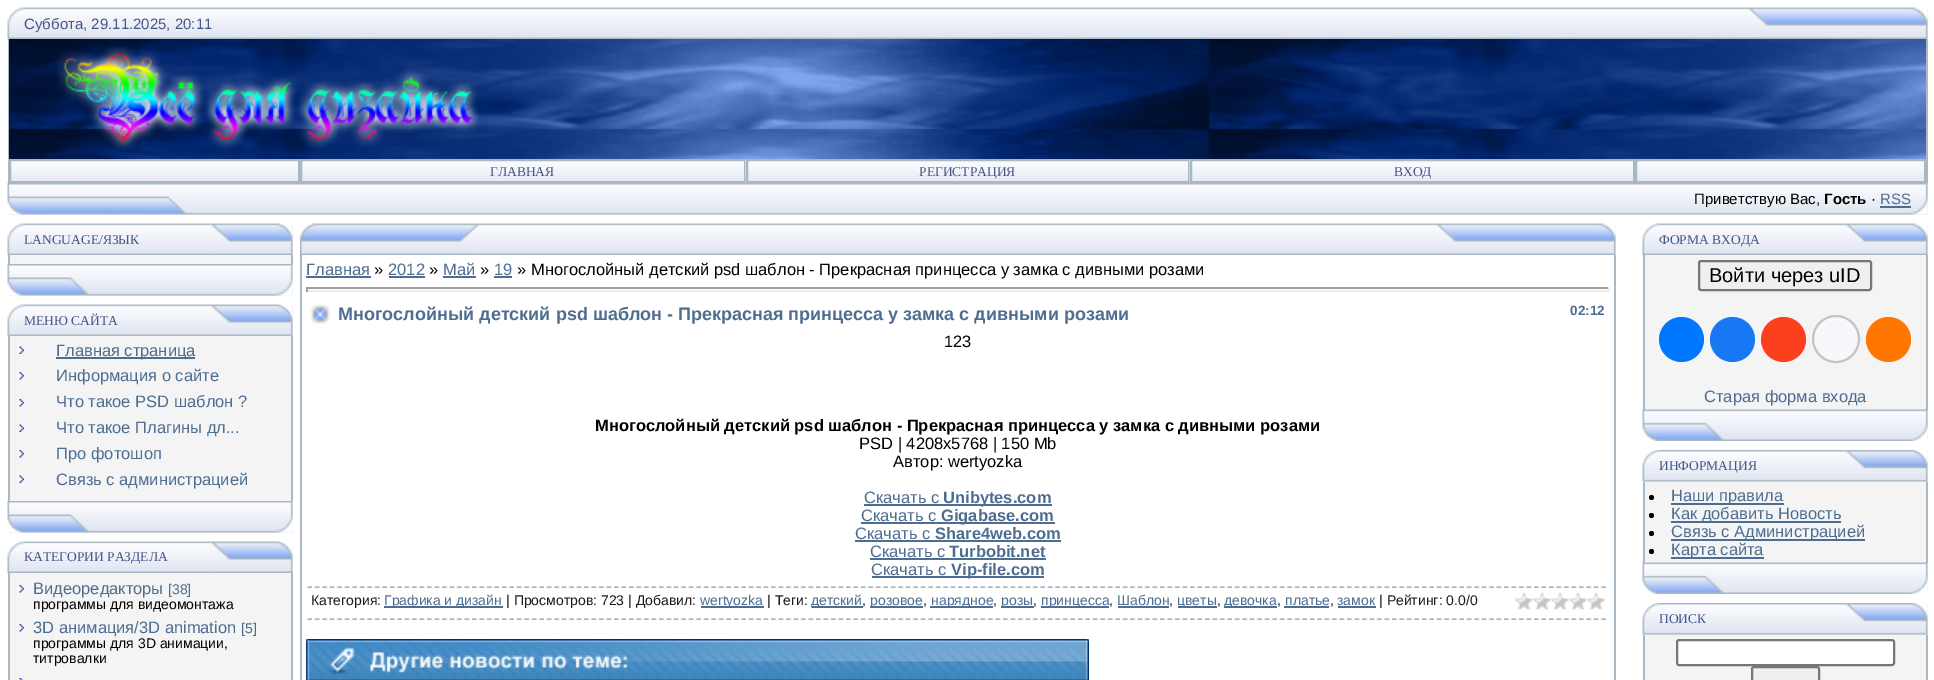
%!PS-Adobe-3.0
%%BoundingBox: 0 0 1934 680
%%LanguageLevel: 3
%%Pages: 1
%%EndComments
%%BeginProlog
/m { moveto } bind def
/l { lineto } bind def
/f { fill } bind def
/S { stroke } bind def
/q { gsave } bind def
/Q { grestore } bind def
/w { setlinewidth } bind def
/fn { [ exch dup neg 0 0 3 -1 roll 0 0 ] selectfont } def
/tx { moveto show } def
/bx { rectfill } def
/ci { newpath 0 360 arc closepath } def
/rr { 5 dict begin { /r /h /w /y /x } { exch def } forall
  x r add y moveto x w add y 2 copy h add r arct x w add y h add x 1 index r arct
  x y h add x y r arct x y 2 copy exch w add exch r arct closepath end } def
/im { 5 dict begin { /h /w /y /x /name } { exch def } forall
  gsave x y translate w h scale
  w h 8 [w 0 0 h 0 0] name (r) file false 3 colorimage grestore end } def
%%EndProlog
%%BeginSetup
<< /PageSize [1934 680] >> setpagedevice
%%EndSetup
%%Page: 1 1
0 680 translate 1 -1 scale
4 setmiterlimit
1 setgray
0 0 1934 680 bx
(image0.raw) 7 7 17 32 im
(image1.raw) 24 7 1725 32 im
/LiberationSans-Regular 15 fn
0.267 0.333 0.533 setrgbcolor
(Суббота, 29.11.2025, 20:11) 24 29 tx
0.894 0.91 0.953 setrgbcolor
1927 8 1 31 bx
(image2.raw) 1749 7 179 32 im
0.663 0.722 0.761 setrgbcolor
1926 39 2 144 bx
8 39 1 144 bx
(image3.raw) 9 39 1917 120 im
(image4.raw) 57 46 422 104 im
(image5.raw) 11 161 287 20 im
2 w
10 160 289 22 rectstroke
(image6.raw) 302 161 442 20 im
301 160 444 22 rectstroke
/LiberationSerif-Regular 13.5 fn
0.267 0.333 0.533 setrgbcolor
(ГЛАВНАЯ) 490 176 tx
(image7.raw) 745 159 443 24 im
0.663 0.722 0.761 setrgbcolor
747 160 442 22 rectstroke
0.267 0.333 0.533 setrgbcolor
(РЕГИСТРАЦИЯ) 919 176 tx
(image8.raw) 1189 159 444 24 im
0.663 0.722 0.761 setrgbcolor
1191 160 443 22 rectstroke
0.267 0.333 0.533 setrgbcolor
(ВХОД) 1394 176 tx
(image9.raw) 1637 161 287 20 im
0.663 0.722 0.761 setrgbcolor
1636 160 289 22 rectstroke
0.894 0.91 0.953 setrgbcolor
8 214 1903 1 bx
(image10.raw) 7 183 179 32 im
1911 183 17 32 bx
(image11.raw) 1911 183 17 32 im
(image12.raw) 186 183 1725 32 im
/LiberationSans-Regular 15 fn
0 setgray
(Приветствую Вас,) 1694 204 tx
/LiberationSans-Bold 15 fn
(Гость) 1824 204 tx
/LiberationSans-Regular 15 fn
(·) 1871 204 tx
0.302 0.427 0.569 setrgbcolor
(RSS) 1880 204 tx
1880 206 31 2 bx
0.914 0.925 0.961 setrgbcolor
211 224 82 31 bx
(image0.raw) 7 223 17 32 im
(image13.raw) 24 223 188 32 im
/LiberationSerif-Regular 13.5 fn
0.267 0.333 0.533 setrgbcolor
(LANGUAGE/ЯЗЫК) 24 244 tx
(image14.raw) 211 223 82 32 im
0.957 setgray
10 255 281 9 bx
0.663 0.722 0.761 setrgbcolor
291 255 2 9 bx
8 255 2 9 bx
0.914 0.925 0.961 setrgbcolor
8 264 285 32 bx
(image15.raw) 7 264 286 32 im
211 305 82 31 bx
(image0.raw) 7 304 17 32 im
(image13.raw) 24 304 188 32 im
0.267 0.333 0.533 setrgbcolor
(МЕНЮ САЙТА) 24 325 tx
(image14.raw) 211 304 82 32 im
0.957 setgray
10 336 281 165 bx
0.663 0.722 0.761 setrgbcolor
291 336 2 165 bx
8 336 2 165 bx
(image16.raw) 18 346 6 8 im
0.302 0.427 0.569 setrgbcolor
56 357 139 2 bx
/LiberationSans-Regular 16.5 fn
(Главная страница) 56 356 tx
(image17.raw) 18 372 6 8 im
(Информация о сайте) 56 381 tx
(image17.raw) 18 399 6 8 im
(Что такое PSD шаблон ?) 56 407 tx
(image16.raw) 18 424 6 8 im
(Что такое Плагины дл...) 56 433 tx
(image17.raw) 18 450 6 8 im
(Про фотошоп) 56 459 tx
(image16.raw) 18 475 6 8 im
(Связь с администрацией) 56 485 tx
0.914 0.925 0.961 setrgbcolor
8 501 285 32 bx
(image15.raw) 7 501 286 32 im
211 542 82 31 bx
(image0.raw) 7 541 17 32 im
(image13.raw) 24 541 188 32 im
/LiberationSerif-Regular 13.5 fn
0.267 0.333 0.533 setrgbcolor
(КАТЕГОРИИ РАЗДЕЛА) 24 561 tx
(image14.raw) 211 541 82 32 im
0.957 setgray
10 573 281 107 bx
0.663 0.722 0.761 setrgbcolor
291 573 2 107 bx
8 573 2 107 bx
(image17.raw) 18 585 6 8 im
/LiberationSans-Regular 16.5 fn
0.302 0.427 0.569 setrgbcolor
(Видеоредакторы) 33 594 tx
/LiberationSans-Regular 14 fn
([38]) 168 594 tx
0 setgray
(программы для видеомонтажа) 33 609 tx
(image17.raw) 18 624 6 8 im
/LiberationSans-Regular 16.5 fn
0.302 0.427 0.569 setrgbcolor
(3D анимация/3D animation) 33 633 tx
/LiberationSans-Regular 14 fn
([5]) 241 633 tx
0 setgray
(программы для 3D анимации,) 33 648 tx
(титровалки) 33 663 tx
(image18.raw) 18 678 5 2 im
(image20.raw) 478 223 959 32 im
(image19.raw) 300 223 179 32 im
0.914 0.925 0.961 setrgbcolor
1615 224 1 31 bx
(image21.raw) 1437 223 179 32 im
0.663 0.722 0.761 setrgbcolor
1614 255 2 425 bx
300 255 2 425 bx
/LiberationSans-Regular 16.5 fn
0.302 0.427 0.569 setrgbcolor
(Главная) 306 275 tx
306 276 65 2 bx
0 setgray
(») 374 275 tx
0.302 0.427 0.569 setrgbcolor
(2012) 388 275 tx
389 276 36 2 bx
0 setgray
(») 429 275 tx
0.302 0.427 0.569 setrgbcolor
(Май) 443 275 tx
443 276 33 2 bx
0 setgray
(») 480 275 tx
0.302 0.427 0.569 setrgbcolor
(19) 494 275 tx
494 276 18 2 bx
0 setgray
(» Многослойный детский psd шаблон - Прекрасная принцесса у замка с дивными розами) 517 275 tx
0.624 setgray
306 287 1304 2 bx
0.933 setgray
1608 287 2 5 bx
306 290 1304 2 bx
0.624 setgray
306 287 2 5 bx
(image22.raw) 310 304 20 20 im
/LiberationSans-Bold 18 fn
0.302 0.427 0.569 setrgbcolor
(Многослойный детский psd шаблон - Прекрасная принцесса у замка с дивными розами) 338 320 tx
/LiberationSans-Bold 13.5 fn
(02:12) 1570 315 tx
/LiberationSans-Regular 16.5 fn
0 setgray
(123) 944 347 tx
/LiberationSans-Bold 16.5 fn
(Многослойный детский psd шаблон - Прекрасная принцесса у замка с дивными розами) 595 431 tx
/LiberationSans-Regular 16.5 fn
(PSD | 4208x5768 | 150 Mb) 859 449 tx
(Автор: wertyozka) 893 467 tx
0.302 0.427 0.569 setrgbcolor
(Скачать с) 864 503 tx
864 504 188 2 bx
/LiberationSans-Bold 16.5 fn
(Unibytes.com) 943 503 tx
/LiberationSans-Regular 16.5 fn
(Скачать с) 861 521 tx
861 522 194 2 bx
/LiberationSans-Bold 16.5 fn
(Gigabase.com) 941 521 tx
/LiberationSans-Regular 16.5 fn
(Скачать с) 855 539 tx
855 540 206 2 bx
/LiberationSans-Bold 16.5 fn
(Share4web.com) 935 539 tx
/LiberationSans-Regular 16.5 fn
(Скачать с) 870 557 tx
870 558 176 2 bx
/LiberationSans-Bold 16.5 fn
(Turbobit.net) 949 557 tx
/LiberationSans-Regular 16.5 fn
(Скачать с) 871 575 tx
872 576 172 2 bx
/LiberationSans-Bold 16.5 fn
(Vip-file.com) 951 575 tx
0.663 0.722 0.761 setrgbcolor
1.5 w
[4.5 2.98] 0 setdash
307.5 587 m 1608 587 l S
307.5 619 m 1608 619 l S
/LiberationSans-Regular 14 fn
0.102 setgray
(Категория:) 311 605 tx
0.302 0.427 0.569 setrgbcolor
384 606 119 2 bx
(Графика и дизайн) 384 605 tx
0.102 setgray
(| Просмотров: 723 | Добавил:) 506 605 tx
0.302 0.427 0.569 setrgbcolor
701 606 63 2 bx
(wertyozka) 700 605 tx
0.102 setgray
(| Теги:) 767 605 tx
0.302 0.427 0.569 setrgbcolor
812 606 51 2 bx
(детский) 811 605 tx
0.102 setgray
(,) 862 605 tx
0.302 0.427 0.569 setrgbcolor
870 606 53 2 bx
(розовое) 870 605 tx
0.102 setgray
(,) 923 605 tx
0.302 0.427 0.569 setrgbcolor
930 606 63 2 bx
(нарядное) 931 605 tx
0.102 setgray
(,) 993 605 tx
0.302 0.427 0.569 setrgbcolor
1001 606 33 2 bx
(розы) 1001 605 tx
0.102 setgray
(,) 1033 605 tx
0.302 0.427 0.569 setrgbcolor
1041 606 68 2 bx
(принцесса) 1041 605 tx
0.102 setgray
(,) 1109 605 tx
0.302 0.427 0.569 setrgbcolor
(Шаблон) 1117 605 tx
0.102 setgray
(,) 1169 605 tx
0.302 0.427 0.569 setrgbcolor
1118 606 51 2 bx
1178 606 39 2 bx
(цветы) 1177 605 tx
0.102 setgray
(,) 1217 605 tx
0.302 0.427 0.569 setrgbcolor
1224 606 53 2 bx
(девочка) 1224 605 tx
0.102 setgray
(,) 1277 605 tx
0.302 0.427 0.569 setrgbcolor
(платье) 1285 605 tx
0.102 setgray
(,) 1330 605 tx
0.302 0.427 0.569 setrgbcolor
1284 606 45 2 bx
1338 606 38 2 bx
(замок) 1337 605 tx
0.102 setgray
(| Рейтинг: 0.0/0) 1379 605 tx
(image23.raw) 1515 592 90 19 im
(image24.raw) 306 639 783 41 im
0.914 0.925 0.961 setrgbcolor
1846 224 82 31 bx
(image0.raw) 1642 223 17 32 im
(image13.raw) 1659 223 188 32 im
/LiberationSerif-Regular 13.5 fn
0.267 0.333 0.533 setrgbcolor
(ФОРМА ВХОДА) 1659 244 tx
(image14.raw) 1846 223 82 32 im
0.957 setgray
1645 255 281 155 bx
0.663 0.722 0.761 setrgbcolor
1926 255 2 155 bx
1643 255 2 155 bx
0.937 setgray
1699 261 172 29 2 rr q f Q
0.463 setgray
2 w
[] 0 setdash
S
/LiberationSans-Regular 20 fn
0 setgray
(Войти через uID) 1709 282 tx
0 0.467 1 setrgbcolor
1681.5 339.5 22.5 ci f
0.094 0.467 0.949 setrgbcolor
1732.5 339.5 22.5 ci f
0.988 0.247 0.114 setrgbcolor
1783.5 339.5 22.5 ci f
0.973 0.973 0.988 setrgbcolor
1836 339 23 ci q f Q
0.769 setgray
S
1 0.467 0 setrgbcolor
1888.5 339.5 22.5 ci f
/LiberationSans-Regular 16.5 fn
0.302 0.427 0.569 setrgbcolor
(Старая форма входа) 1704 402 tx
0.914 0.925 0.961 setrgbcolor
1927 410 1 31 bx
(image25.raw) 1642 409 286 32 im
1643 450 285 32 bx
(image26.raw) 1642 450 17 32 im
(image27.raw) 1659 450 188 32 im
/LiberationSerif-Regular 13.5 fn
0.267 0.333 0.533 setrgbcolor
(ИНФОРМАЦИЯ) 1659 470 tx
(image28.raw) 1846 450 82 32 im
0.957 setgray
1645 482 281 81 bx
0.663 0.722 0.761 setrgbcolor
1926 482 2 81 bx
1643 482 2 81 bx
0 setgray
1651.5 497.5 2.5 ci f
0.302 0.427 0.569 setrgbcolor
1671 503 113 2 bx
/LiberationSans-Regular 16.5 fn
(Наши правила) 1671 501 tx
0 setgray
1651.5 515.5 2.5 ci f
0.302 0.427 0.569 setrgbcolor
1671 521 170 2 bx
(Как добавить Новость) 1671 519 tx
0 setgray
1651.5 533.5 2.5 ci f
0.302 0.427 0.569 setrgbcolor
1671 539 194 2 bx
(Связь с Администрацией) 1671 537 tx
0 setgray
1651.5 551.5 2.5 ci f
0.302 0.427 0.569 setrgbcolor
1671 557 93 2 bx
(Карта сайта) 1671 555 tx
0.914 0.925 0.961 setrgbcolor
1927 563 1 31 bx
(image25.raw) 1642 562 286 32 im
1643 603 285 32 bx
(image26.raw) 1642 603 17 32 im
(image27.raw) 1659 603 188 32 im
/LiberationSerif-Regular 13.5 fn
0.267 0.333 0.533 setrgbcolor
(ПОИСК) 1659 623 tx
(image28.raw) 1846 603 82 32 im
0.957 setgray
1645 635 281 45 bx
0.663 0.722 0.761 setrgbcolor
1926 635 2 45 bx
1643 635 2 45 bx
1 setgray
1677 640 217 25 2 rr q f Q
0.463 setgray
S
0.937 setgray
1752 667 67 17 2 rr q f Q
0.463 setgray
S
showpage
%%EOF
